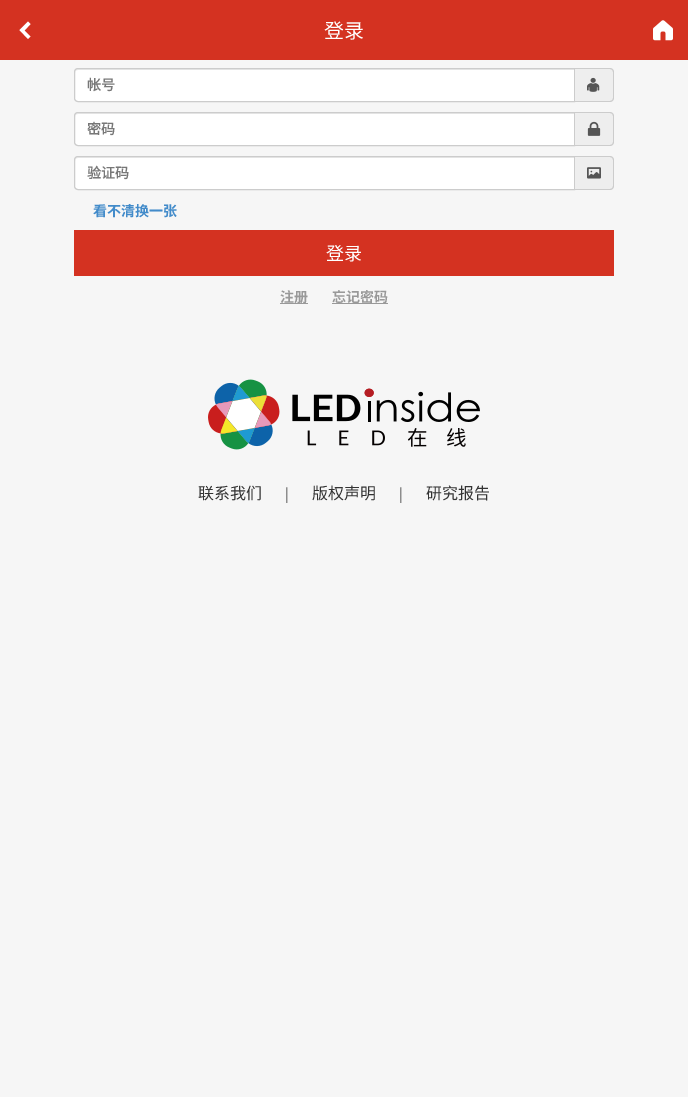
%!PS-Adobe-3.0
%%BoundingBox: 0 0 688 1097
%%LanguageLevel: 3
%%Pages: 1
%%EndComments
%%BeginProlog
/m { moveto } bind def
/l { lineto } bind def
/c { curveto } bind def
/h { closepath } bind def
/f { fill } bind def
/S { stroke } bind def
/fn { [ exch dup neg 0 0 3 -1 roll 0 0 ] selectfont } def
/tx { moveto show } def
/bx { rectfill } def
/im { 5 dict begin { /h /w /y /x /name } { exch def } forall
  gsave x y translate w h scale
  w h 8 [w 0 0 h 0 0] name (r) file false 3 colorimage grestore end } def
%%EndProlog
%%BeginSetup
<< /PageSize [688 1097] >> setpagedevice
%%EndSetup
%%Page: 1 1
0 1097 translate 1 -1 scale
4 setmiterlimit
0.965 setgray
0 0 688 1097 bx
0.831 0.196 0.129 setrgbcolor
0 0 688 60 bx
1 setgray
19.5 30 m 28 21.5 l 30.5 24 l 24.5 30.5 l 30.5 36.5 l 28 39 l h f
/NotoSansSC-Regular 20 fn
(登录) 324 38 tx
(image0.raw) 653 20 20 21 im
78 68 m 575 68 l 575 102 l 78 102 l 76 102 74 100 74 98 c 74 72 l 74 70 76 68 78 68 c h f
0.925 setgray
78 70 m 574 70 l 574 69 l 78 69 l 76 69 75 71 75 73 c 75 71 76 70 78 70 c h f
0.8 setgray
78 68.5 m 574.5 68.5 l 574.5 101.5 l 78 101.5 l 76 101.5 74.5 100 74.5 98 c 74.5 72 l 74.5 70 76 68.5 78 68.5 c h S
/NotoSansCJKSC-Bold 14 fn
0.467 setgray
(帐号) 87 90 tx
0.933 setgray
575 68 m 610 68 l 612 68 614 70 614 72 c 614 98 l 614 100 612 102 610 102 c 575 102 l h f
0.8 setgray
575 68 m 610 68 l 612 68 614 70 614 72 c 614 98 l 614 100 612 102 610 102 c 575 102 l h 575 69 m 610 69 l 611.5 69 613 70.5 613 72 c 613 98 l 613 99.5 611.5 101 610 101 c 575 101 l h eofill
(image1.raw) 587 77 13 15 im
1 setgray
78 112 m 575 112 l 575 146 l 78 146 l 76 146 74 144 74 142 c 74 116 l 74 114 76 112 78 112 c h f
0.925 setgray
78 114 m 574 114 l 574 113 l 78 113 l 76 113 75 115 75 117 c 75 115 76 114 78 114 c h f
0.8 setgray
78 112.5 m 574.5 112.5 l 574.5 145.5 l 78 145.5 l 76 145.5 74.5 144 74.5 142 c 74.5 116 l 74.5 114 76 112.5 78 112.5 c h S
0.467 setgray
(密码) 87 134 tx
0.933 setgray
575 112 m 610 112 l 612 112 614 114 614 116 c 614 142 l 614 144 612 146 610 146 c 575 146 l h f
0.8 setgray
575 112 m 610 112 l 612 112 614 114 614 116 c 614 142 l 614 144 612 146 610 146 c 575 146 l h 575 113 m 610 113 l 611.5 113 613 114.5 613 116 c 613 142 l 613 143.5 611.5 145 610 145 c 575 145 l h eofill
(image2.raw) 587 121 14 15 im
1 setgray
78 156 m 575 156 l 575 190 l 78 190 l 76 190 74 188 74 186 c 74 160 l 74 158 76 156 78 156 c h f
0.925 setgray
78 158 m 574 158 l 574 157 l 78 157 l 76 157 75 159 75 161 c 75 159 76 158 78 158 c h f
0.8 setgray
78 156.5 m 574.5 156.5 l 574.5 189.5 l 78 189.5 l 76 189.5 74.5 188 74.5 186 c 74.5 160 l 74.5 158 76 156.5 78 156.5 c h S
0.467 setgray
(验证码) 87 178 tx
0.933 setgray
575 156 m 610 156 l 612 156 614 158 614 160 c 614 186 l 614 188 612 190 610 190 c 575 190 l h f
0.8 setgray
575 156 m 610 156 l 612 156 614 158 614 160 c 614 186 l 614 188 612 190 610 190 c 575 190 l h 575 157 m 610 157 l 611.5 157 613 158.5 613 160 c 613 186 l 613 187.5 611.5 189 610 189 c 575 189 l h eofill
(image3.raw) 587 167 14 12 im
/NotoSansSC-Bold 14 fn
0.259 0.545 0.792 setrgbcolor
(看不清换一张) 93 216 tx
0.831 0.196 0.129 setrgbcolor
74 230 540 46 bx
/NotoSansSC-Regular 18 fn
1 setgray
(登录) 326 260 tx
0.6 setgray
280 303 28 1 bx
/NotoSansSC-Bold 14 fn
(注册) 280 302 tx
332 303 56 1 bx
(忘记密码) 332 302 tx
(image4.raw) 208 379 272 71 im
/NotoSansSC-Regular 16 fn
0.2 setgray
(联系我们) 198 499 tx
/NotoSansSC-Regular 14 fn
(|) 285 499 tx
/NotoSansSC-Regular 16 fn
(版权声明) 312 499 tx
/NotoSansSC-Regular 14 fn
(|) 399 499 tx
/NotoSansSC-Regular 16 fn
(研究报告) 426 499 tx
showpage
%%EOF
